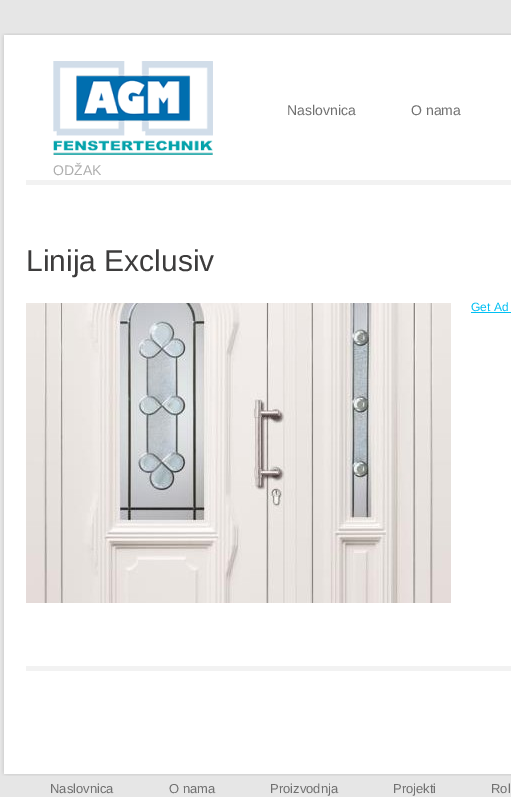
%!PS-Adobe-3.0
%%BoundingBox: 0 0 511 797
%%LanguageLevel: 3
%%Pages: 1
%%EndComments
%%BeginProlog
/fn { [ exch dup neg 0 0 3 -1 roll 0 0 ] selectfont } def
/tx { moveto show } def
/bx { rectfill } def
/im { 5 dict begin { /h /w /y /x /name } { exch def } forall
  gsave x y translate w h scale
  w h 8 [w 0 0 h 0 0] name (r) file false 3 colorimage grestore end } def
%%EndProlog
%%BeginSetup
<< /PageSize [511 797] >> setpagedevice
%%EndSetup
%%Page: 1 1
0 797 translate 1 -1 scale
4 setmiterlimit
0.902 setgray
0 0 511 797 bx
(image0.raw) 1 33 510 147 im
/LiberationSans-Regular 14 fn
0.439 setgray
(Naslovnica) 287 115 tx
(O nama) 411 115 tx
(image1.raw) 53 61 160 94 im
0.682 setgray
(ODŽAK) 53 175 tx
(image2.raw) 1 180 510 486 im
0.949 setgray
26 180 485 5 bx
/LiberationSans-Regular 30 fn
0.239 0.235 0.235 setrgbcolor
(Linija Exclusiv) 26 271 tx
(image3.raw) 26 303 425 300 im
/LiberationSans-Regular 12 fn
0 0.749 0.953 setrgbcolor
(Get Ad) 471 311 tx
471 312 40 1 bx
(image4.raw) 1 666 510 110 im
/LiberationSans-Regular 13 fn
0.439 setgray
(Naslovnica) 50 793 tx
(O nama) 169 793 tx
(Proizvodnja) 270 793 tx
(Projekti) 393 793 tx
(Rol) 491 793 tx
showpage
%%EOF
